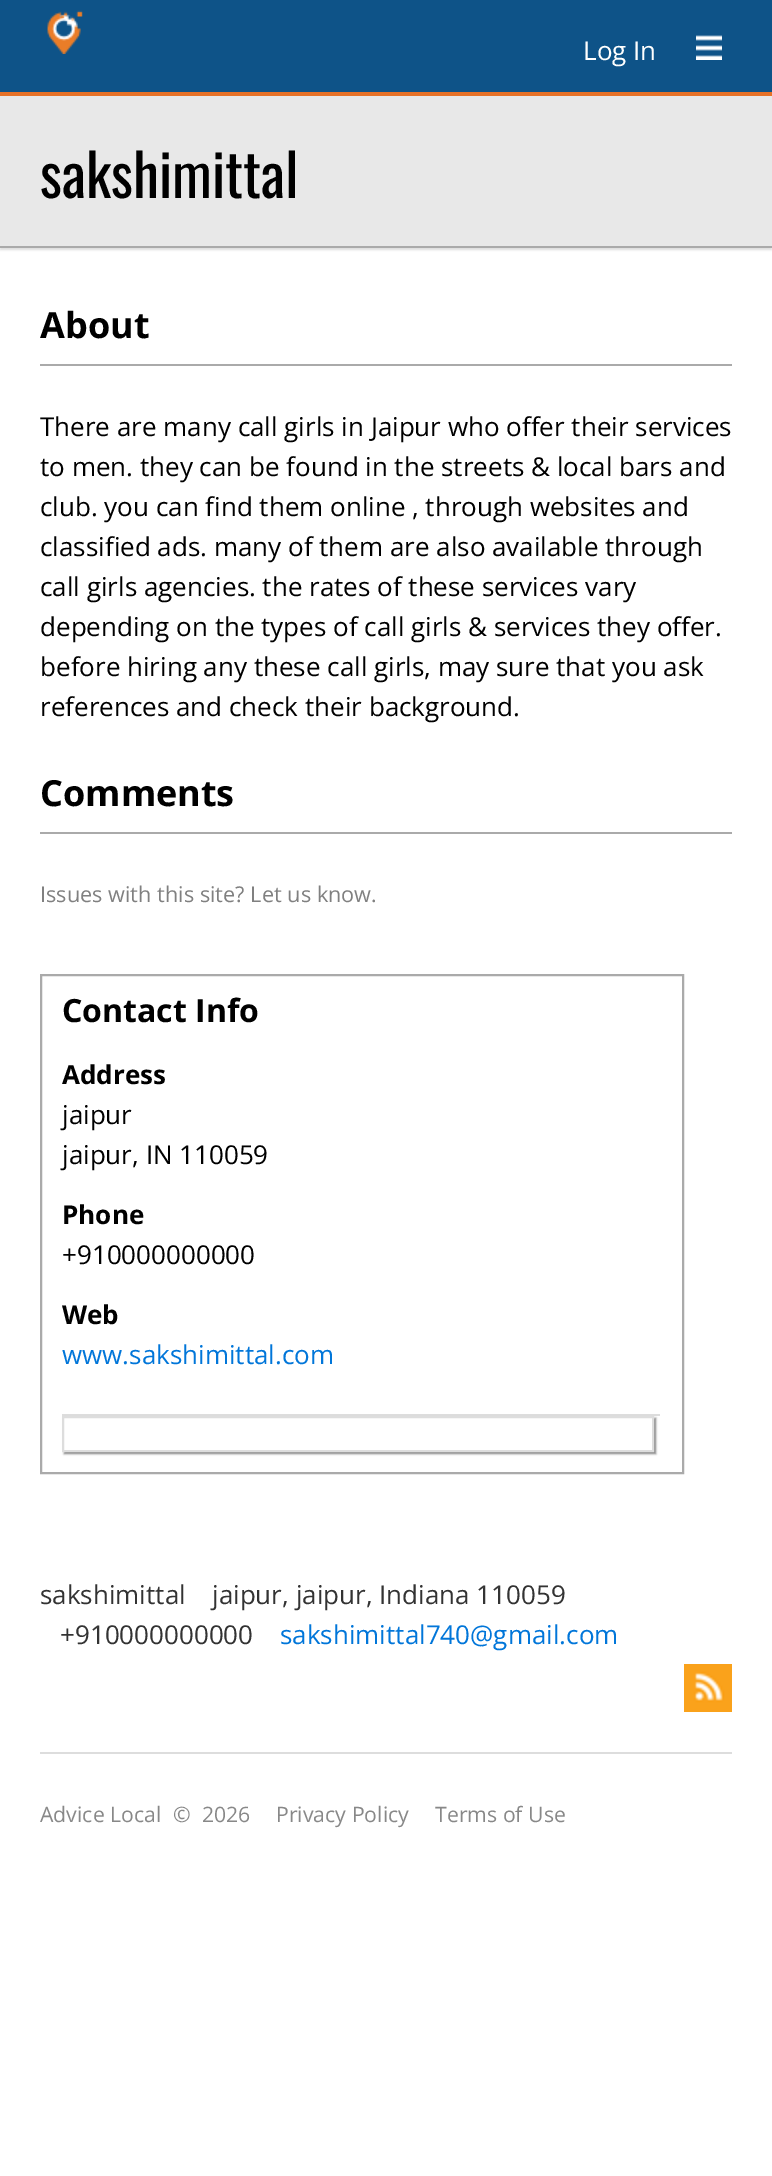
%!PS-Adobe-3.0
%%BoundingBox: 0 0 772 2176
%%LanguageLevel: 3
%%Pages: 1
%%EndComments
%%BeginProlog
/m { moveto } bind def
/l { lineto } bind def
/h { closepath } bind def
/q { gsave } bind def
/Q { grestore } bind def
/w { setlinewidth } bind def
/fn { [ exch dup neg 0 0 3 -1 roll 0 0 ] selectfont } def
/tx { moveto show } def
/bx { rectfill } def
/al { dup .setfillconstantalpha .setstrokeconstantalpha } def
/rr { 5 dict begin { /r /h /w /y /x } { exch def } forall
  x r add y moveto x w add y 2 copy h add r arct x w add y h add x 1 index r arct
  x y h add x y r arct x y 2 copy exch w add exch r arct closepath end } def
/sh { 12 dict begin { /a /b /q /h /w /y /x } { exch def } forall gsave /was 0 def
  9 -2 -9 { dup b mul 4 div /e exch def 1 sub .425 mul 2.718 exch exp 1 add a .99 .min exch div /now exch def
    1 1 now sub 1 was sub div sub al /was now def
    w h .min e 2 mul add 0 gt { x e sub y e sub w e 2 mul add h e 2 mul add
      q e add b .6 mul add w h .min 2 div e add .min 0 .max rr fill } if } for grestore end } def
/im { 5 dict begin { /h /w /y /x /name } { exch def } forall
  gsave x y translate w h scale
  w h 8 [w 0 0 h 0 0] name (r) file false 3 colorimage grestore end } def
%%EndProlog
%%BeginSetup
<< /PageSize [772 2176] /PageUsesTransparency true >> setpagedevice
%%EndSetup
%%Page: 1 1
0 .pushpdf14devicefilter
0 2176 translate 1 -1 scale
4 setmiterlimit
1 setgray
0 0 772 2176 bx
0.055 0.325 0.533 setrgbcolor
0 0 772 92 bx
0.902 0.443 0.153 setrgbcolor
0 92 772 4 bx
(image0.raw) 47 10 36 44 im
/OpenSans-Regular 26 fn
1 setgray
(Log In) 583 60 tx
(image1.raw) 696 35 26 25 im
0.867 setgray
0 98 772 152 0 1 1 sh
0.91 setgray
0 96 772 150 bx
0.667 setgray
0 246 772 2 bx
/Oswald-Regular 58.5 fn
0 setgray
(sakshimittal) 40 198 tx
0.667 setgray
40 364 692 2 bx
/OpenSans-Bold 36 fn
0 setgray
(About) 40 338 tx
/OpenSans-Regular 26 fn
(There are many call girls in Jaipur who offer their services) 40 436 tx
(to men. they can be found in the streets & local bars and) 40 476 tx
(club. you can find them online , through websites and) 40 516 tx
(classified ads. many of them are also available through) 40 556 tx
(call girls agencies. the rates of these services vary) 40 596 tx
(depending on the types of call girls & services they offer.) 40 636 tx
(before hiring any these call girls, may sure that you ask) 40 676 tx
(references and check their background.) 40 716 tx
0.667 setgray
40 832 692 2 bx
/OpenSans-Bold 36 fn
0 setgray
(Comments) 40 806 tx
/OpenSans-Regular 21.7 fn
0.502 setgray
(Issues with this site? Let us know.) 40 902 tx
0.667 setgray
2 w
41 975 642 498 rectstroke
/OpenSans-Bold 32 fn
0 setgray
(Contact Info) 62 1022 tx
/OpenSans-Bold 26 fn
(Address) 62 1084 tx
/OpenSans-Regular 26 fn
(jaipur) 62 1124 tx
(jaipur, IN 110059) 62 1164 tx
/OpenSans-Bold 26 fn
(Phone) 62 1224 tx
/OpenSans-Regular 26 fn
(+910000000000) 62 1264 tx
/OpenSans-Bold 26 fn
(Web) 62 1324 tx
/OpenSans-Regular 26 fn
0.004 0.463 0.851 setrgbcolor
(www.sakshimittal.com) 62 1364 tx
0.867 setgray
62 1414 598 2 bx
q
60 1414 m 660 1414 l 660 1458 l 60 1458 l h 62 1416 m 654 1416 l 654 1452 l 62 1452 l h eoclip newpath
0.502 setgray
64 1418 592 36 0 1 1 sh
Q
63 1417 590 34 rectstroke
0.2 setgray
(sakshimittal) 40 1604 tx
(jaipur, jaipur, Indiana 110059) 212 1604 tx
(+910000000000) 60 1644 tx
0.004 0.463 0.851 setrgbcolor
(sakshimittal740@gmail.com) 280 1644 tx
(image2.raw) 684 1664 48 48 im
0.867 setgray
40 1752 692 2 bx
/OpenSans-Regular 21.25 fn
0.533 setgray
(Advice Local) 40 1822 tx
(©  2026) 173 1822 tx
(Privacy Policy) 276 1822 tx
(Terms of Use) 435 1822 tx
.poppdf14devicefilter showpage
%%EOF
